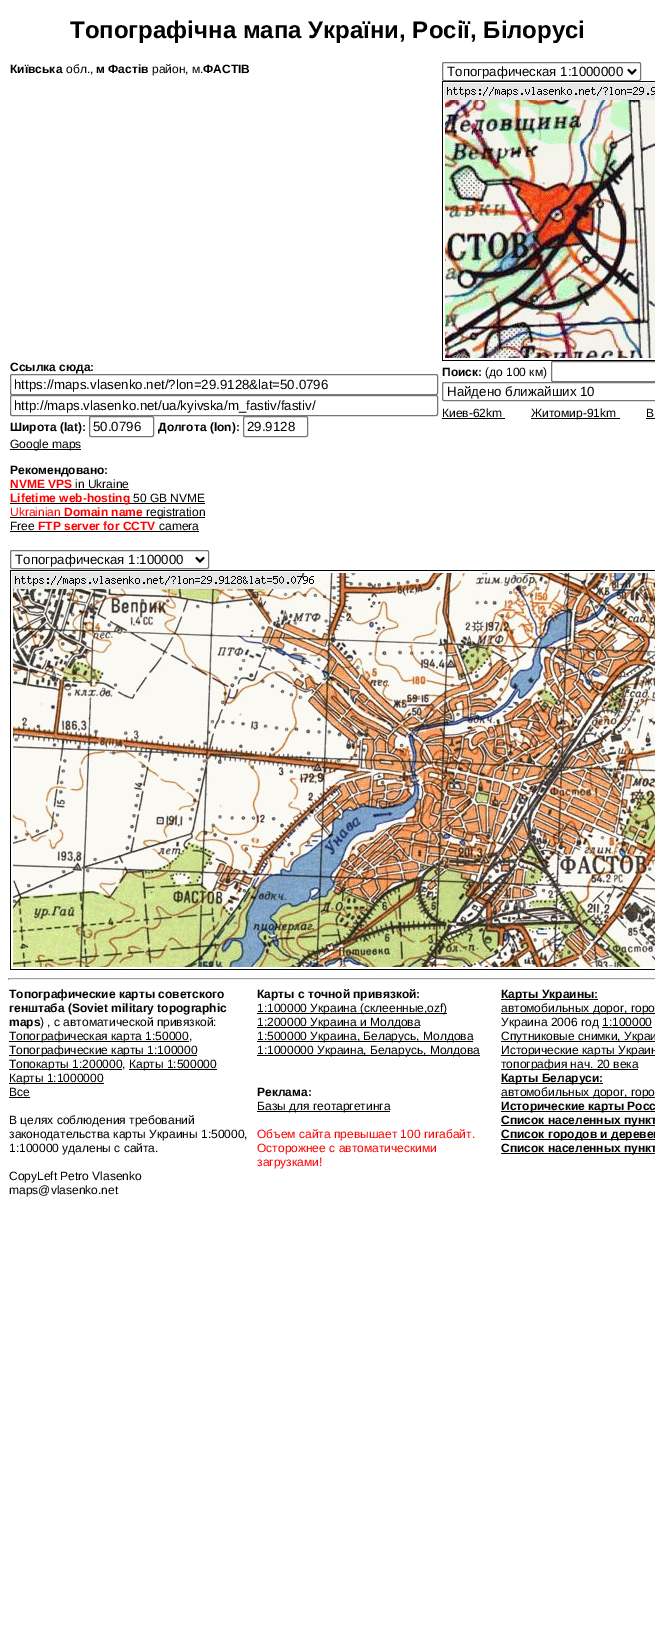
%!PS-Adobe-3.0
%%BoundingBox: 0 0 655 1647
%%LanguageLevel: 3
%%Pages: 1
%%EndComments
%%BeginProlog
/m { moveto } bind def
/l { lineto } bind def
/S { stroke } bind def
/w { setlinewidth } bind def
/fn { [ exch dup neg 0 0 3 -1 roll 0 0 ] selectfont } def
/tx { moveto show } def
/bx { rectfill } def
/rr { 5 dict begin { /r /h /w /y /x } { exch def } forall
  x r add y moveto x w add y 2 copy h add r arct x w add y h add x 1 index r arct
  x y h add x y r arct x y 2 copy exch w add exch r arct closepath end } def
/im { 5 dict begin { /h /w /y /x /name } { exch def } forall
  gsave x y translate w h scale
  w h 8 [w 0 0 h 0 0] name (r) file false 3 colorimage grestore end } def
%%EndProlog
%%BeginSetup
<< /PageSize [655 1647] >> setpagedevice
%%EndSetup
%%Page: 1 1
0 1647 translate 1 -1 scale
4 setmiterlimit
1 setgray
0 0 655 1647 bx
/LiberationSans-Bold 24 fn
0 setgray
(Топографічна мапа України, Росії, Білорусі) 70 38 tx
/LiberationSans-Bold 12 fn
(Київська) 10 73 tx
/LiberationSans-Regular 12 fn
(обл.,) 66 73 tx
/LiberationSans-Bold 12 fn
(м Фастів) 96 73 tx
/LiberationSans-Regular 12 fn
(район, м.) 152 73 tx
/LiberationSans-Bold 12 fn
(ФАСТІВ) 203 73 tx
(Ссылка сюда:) 10 371 tx
0.463 setgray
10.5 374.5 427 20 1.5 rr S
/LiberationSans-Regular 13.3 fn
0 setgray
(https://maps.vlasenko.net/?lon=29.9128&lat=50.0796) 14 389 tx
0.463 setgray
10.5 395.5 427 20 1.5 rr S
0 setgray
(http://maps.vlasenko.net/ua/kyivska/m_fastiv/fastiv/) 14 410 tx
/LiberationSans-Bold 12 fn
(Широта \(lat\):) 10 431 tx
0.463 setgray
89.5 416.5 64 20 1.5 rr S
/LiberationSans-Regular 13.3 fn
0 setgray
(50.0796) 93 431 tx
/LiberationSans-Bold 12 fn
(Долгота \(lon\):) 158 431 tx
0.463 setgray
243.5 416.5 64 20 1.5 rr S
/LiberationSans-Regular 13.3 fn
0 setgray
(29.9128) 247 431 tx
10 449 71 1 bx
/LiberationSans-Regular 12 fn
(Google maps) 10 448 tx
/LiberationSans-Bold 12 fn
(Рекомендовано:) 10 474 tx
1 0 0 setrgbcolor
(NVME VPS) 10 488 tx
0 setgray
10 489 119 1 bx
/LiberationSans-Regular 12 fn
(in Ukraine) 75 488 tx
10 503 195 1 bx
/LiberationSans-Bold 12 fn
1 0 0 setrgbcolor
(Lifetime web-hosting) 10 502 tx
/LiberationSans-Regular 12 fn
0 setgray
(50 GB NVME) 133 502 tx
1 0 0 setrgbcolor
(Ukrainian) 10 516 tx
/LiberationSans-Bold 12 fn
(Domain name) 64 516 tx
0 setgray
10 517 195 1 bx
/LiberationSans-Regular 12 fn
(registration) 146 516 tx
(Free) 10 530 tx
/LiberationSans-Bold 12 fn
1 0 0 setrgbcolor
(FTP server for CCTV) 38 530 tx
/LiberationSans-Regular 12 fn
0 setgray
(camera) 159 530 tx
10 531 189 1 bx
0.463 setgray
442.5 62.5 198 18 1.5 rr S
0 setgray
2 w
628 69.5 m 632 73.5 l 636 69.5 l S
/LiberationSans-Regular 13.3 fn
(Топографическая 1:1000000) 447 76 tx
(image0.raw) 442 81 213 280 im
/LiberationSans-Bold 12 fn
(Поиск:) 442 376 tx
/LiberationSans-Regular 12 fn
(\(до 100 км\)) 485 376 tx
0.463 setgray
1 w
551.5 361.5 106 20 1.5 rr S
442.5 382.5 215 18 1.5 rr S
/LiberationSans-Regular 13.3 fn
0 setgray
(Найдено ближайших 10) 447 396 tx
/LiberationSans-Regular 12 fn
(Киев-62km) 442 417 tx
442 418 63 1 bx
531 418 89 1 bx
(Житомир-91km) 531 417 tx
(В) 646 417 tx
646 418 9 1 bx
0.463 setgray
10.5 550.5 198 18 1.5 rr S
0 setgray
2 w
196 557.5 m 200 561.5 l 204 557.5 l S
/LiberationSans-Regular 13.3 fn
(Топографическая 1:100000) 15 564 tx
(image1.raw) 10 570 645 400 im
0.624 setgray
8 978 647 1 bx
0.933 setgray
8 979 647 1 bx
0.624 setgray
8 978 1 2 bx
/LiberationSans-Bold 12 fn
0 setgray
(Топографические карты советского) 9 998 tx
(генштаба \(Soviet military topographic) 9 1012 tx
(maps) 9 1026 tx
/LiberationSans-Regular 12 fn
(\) , с автоматической привязкой:) 40 1026 tx
9 1041 180 1 bx
(Топографическая карта 1:50000,) 9 1040 tx
9 1055 188 1 bx
(Топографические карты 1:100000) 9 1054 tx
9 1069 113 1 bx
(Топокарты 1:200000,) 9 1068 tx
129 1069 88 1 bx
(Карты 1:500000) 129 1068 tx
9 1083 95 1 bx
(Карты 1:1000000) 9 1082 tx
(Все) 9 1096 tx
9 1097 21 1 bx
(В целях соблюдения требований) 9 1124 tx
(законодательства карты Украины 1:50000,) 9 1138 tx
(1:100000 удалены с сайта.) 9 1152 tx
(CopyLeft Petro Vlasenko) 9 1180 tx
(maps@vlasenko.net) 9 1194 tx
/LiberationSans-Bold 12 fn
(Карты с точной привязкой:) 257 998 tx
257 1013 190 1 bx
/LiberationSans-Regular 12 fn
(1:100000 Украина \(cклеенные,ozf\)) 257 1012 tx
257 1027 163 1 bx
(1:200000 Украина и Молдова) 257 1026 tx
257 1041 216 1 bx
(1:500000 Украина, Беларусь, Молдова) 257 1040 tx
257 1055 223 1 bx
(1:1000000 Украина, Беларусь, Молдова) 257 1054 tx
/LiberationSans-Bold 12 fn
(Реклама:) 257 1096 tx
257 1111 133 1 bx
/LiberationSans-Regular 12 fn
(Базы для геотаргетинга) 257 1110 tx
1 0 0 setrgbcolor
(Объем сайта превышает 100 гигабайт.) 257 1138 tx
(Осторожнее с автоматическими) 257 1152 tx
(загрузками!) 257 1166 tx
0 setgray
501 999 97 1 bx
/LiberationSans-Bold 12 fn
(Карты Украины:) 501 998 tx
501 1013 154 1 bx
/LiberationSans-Regular 12 fn
(автомобильных дорог, горо) 501 1012 tx
(Украина 2006 год 1:100000) 501 1026 tx
602 1027 50 1 bx
501 1041 154 1 bx
(Спутниковые снимки, Украи) 501 1040 tx
501 1055 154 1 bx
(Исторические карты Украин) 501 1054 tx
501 1069 137 1 bx
(топография нач. 20 века) 501 1068 tx
501 1083 102 1 bx
/LiberationSans-Bold 12 fn
(Карты Беларуси:) 501 1082 tx
501 1097 154 1 bx
/LiberationSans-Regular 12 fn
(автомобильных дорог, горо) 501 1096 tx
501 1111 154 1 bx
/LiberationSans-Bold 12 fn
(Исторические карты Росс) 501 1110 tx
501 1125 154 1 bx
(Список населенных пункт) 501 1124 tx
501 1139 154 1 bx
(Список городов и деревен) 501 1138 tx
501 1153 154 1 bx
(Список населенных пункт) 501 1152 tx
showpage
%%EOF
